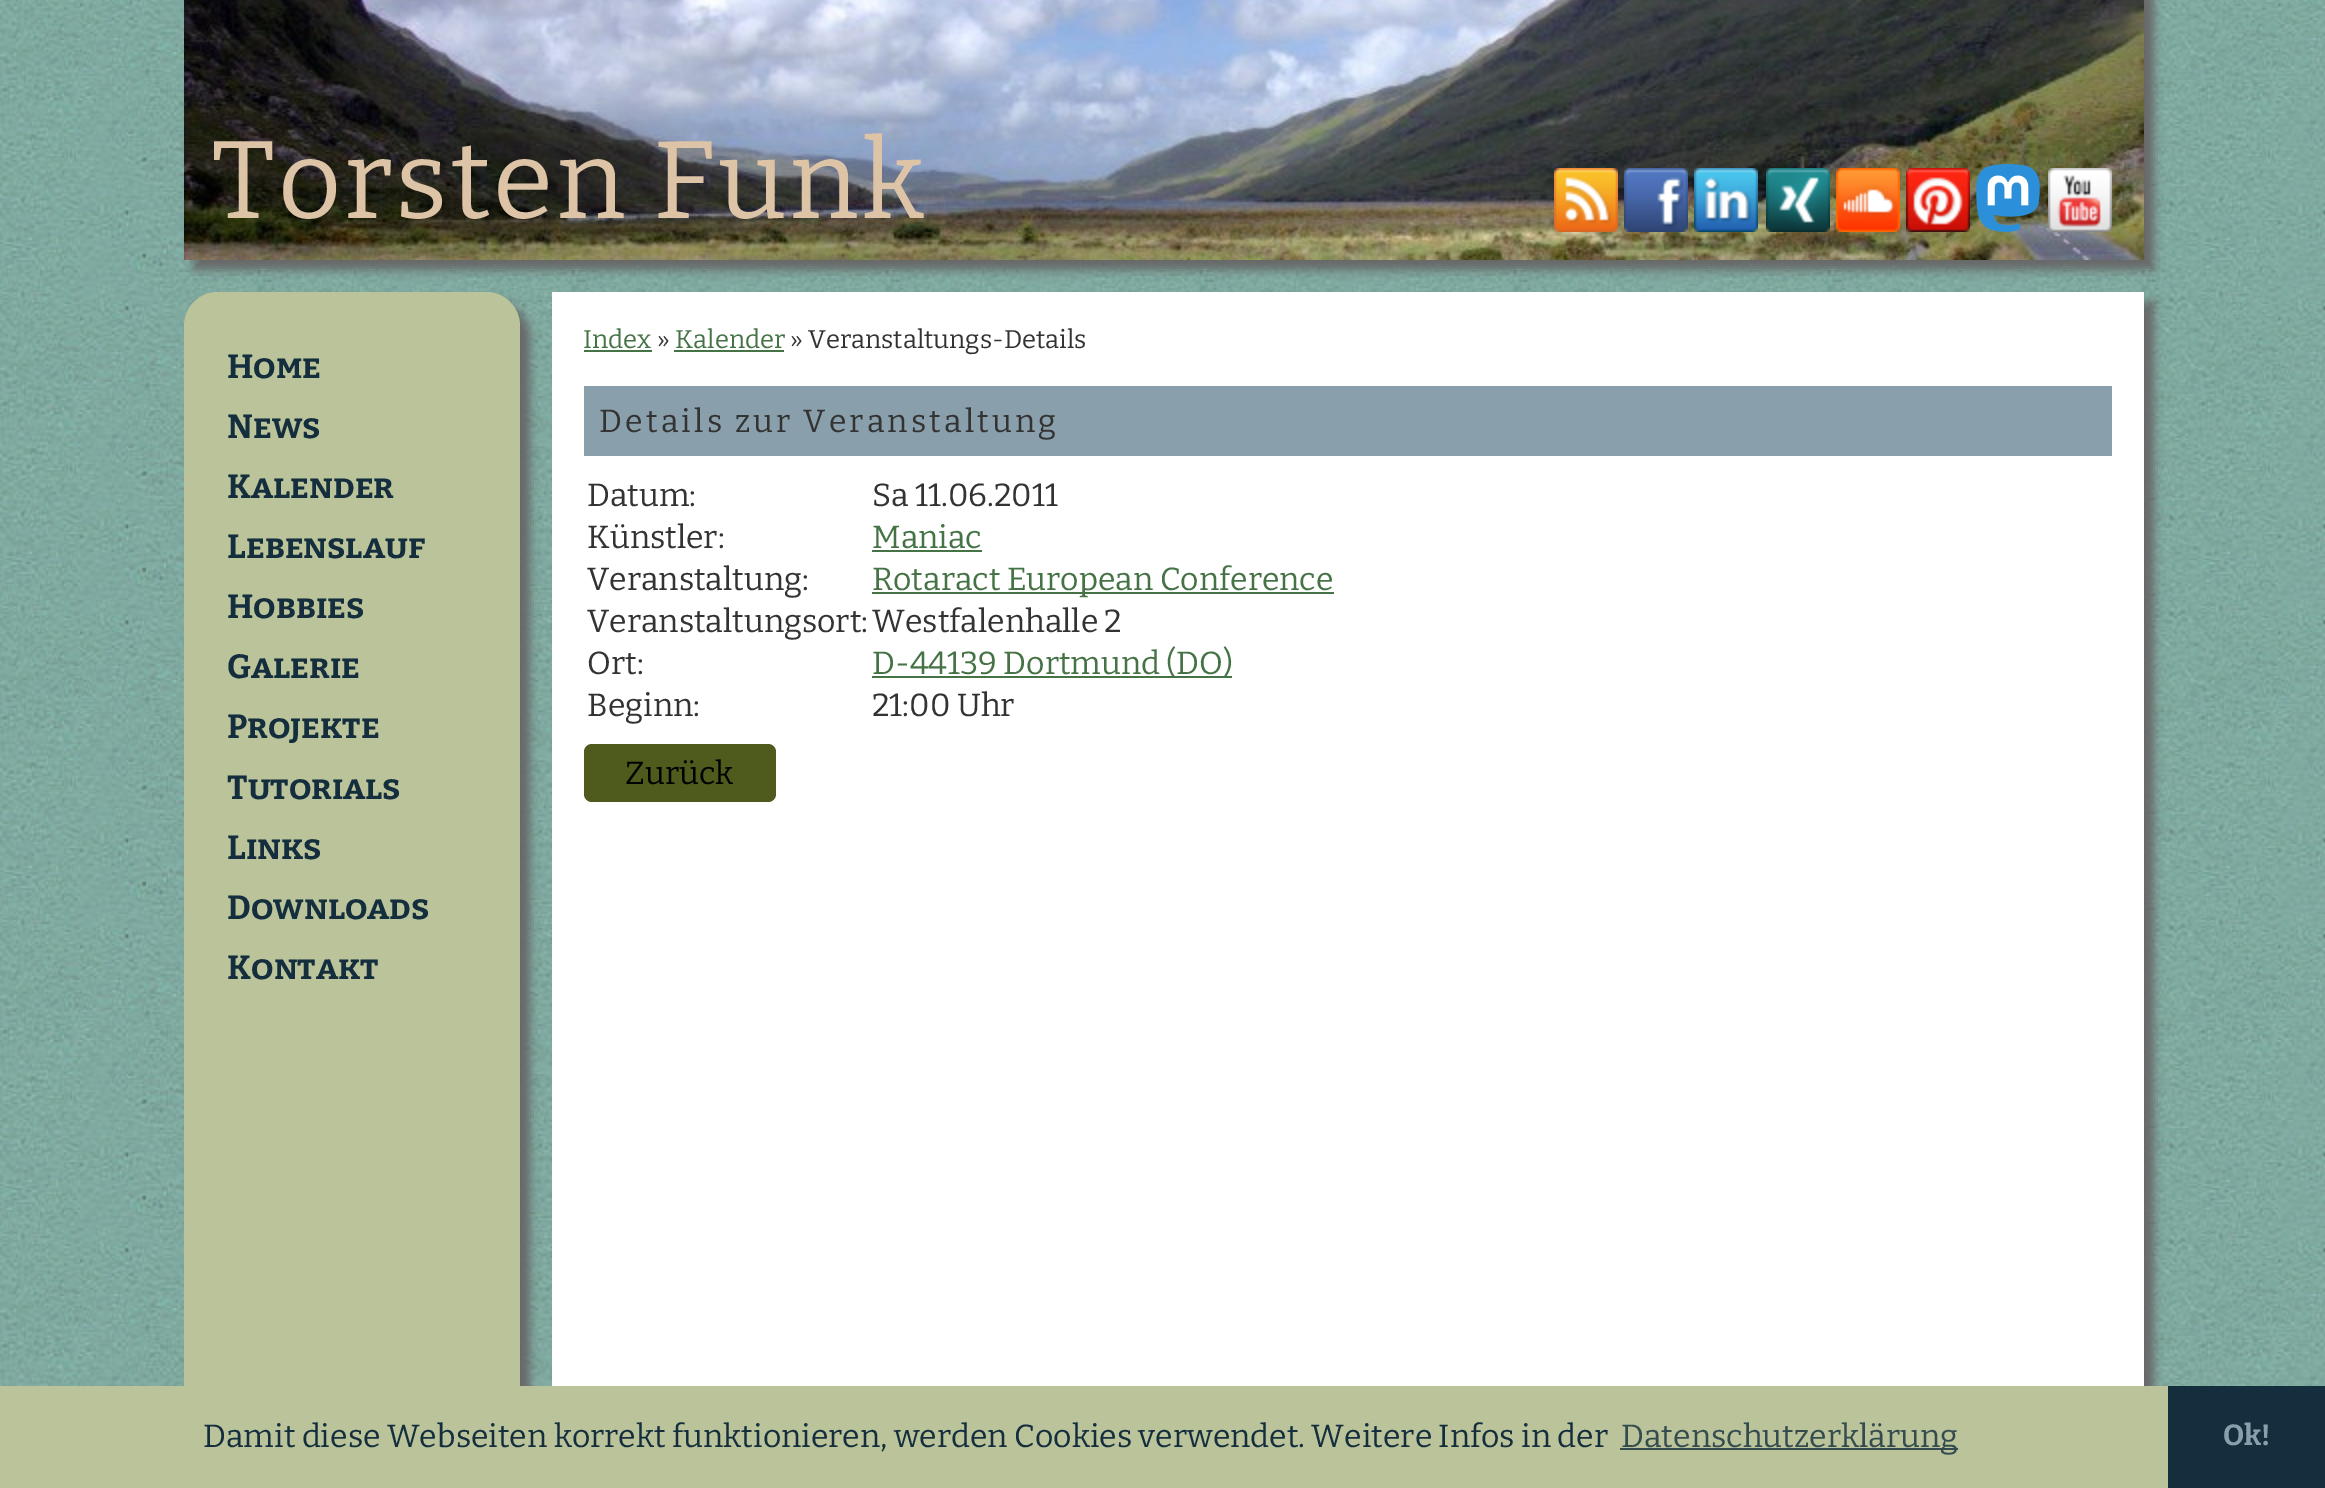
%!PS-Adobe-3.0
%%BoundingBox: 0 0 2325 1488
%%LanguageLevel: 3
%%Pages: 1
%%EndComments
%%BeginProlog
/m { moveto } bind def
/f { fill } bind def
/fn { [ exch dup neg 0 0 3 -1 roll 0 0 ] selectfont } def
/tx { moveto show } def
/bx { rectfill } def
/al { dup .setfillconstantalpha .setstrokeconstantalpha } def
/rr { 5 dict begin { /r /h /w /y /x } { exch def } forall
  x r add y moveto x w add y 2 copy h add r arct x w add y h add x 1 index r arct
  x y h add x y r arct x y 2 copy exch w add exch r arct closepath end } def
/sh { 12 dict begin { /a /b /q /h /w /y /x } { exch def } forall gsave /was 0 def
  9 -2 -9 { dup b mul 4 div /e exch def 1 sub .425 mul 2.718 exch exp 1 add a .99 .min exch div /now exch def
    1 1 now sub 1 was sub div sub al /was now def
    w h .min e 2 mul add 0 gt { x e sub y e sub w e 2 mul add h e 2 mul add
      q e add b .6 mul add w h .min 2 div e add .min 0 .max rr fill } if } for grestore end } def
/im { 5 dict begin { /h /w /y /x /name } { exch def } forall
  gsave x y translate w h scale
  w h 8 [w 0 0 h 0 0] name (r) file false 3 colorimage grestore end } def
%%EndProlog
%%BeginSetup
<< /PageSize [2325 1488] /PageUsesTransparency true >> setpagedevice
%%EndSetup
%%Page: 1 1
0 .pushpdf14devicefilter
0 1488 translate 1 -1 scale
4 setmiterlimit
1 setgray
0 0 2325 1488 bx
(image0.raw) 0 0 2325 1386 im
0.4 setgray
194 -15 1960 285 0 5 1 sh
(image1.raw) 184 0 1960 260 im
/Bitter-Regular 110 fn
0.871 0.769 0.655 setrgbcolor
211 218 m 2.75 0 (Torsten Funk) ashow
(image2.raw) 1554 168 64 64 im
(image3.raw) 1624 168 64 64 im
(image4.raw) 1694 168 64 64 im
(image5.raw) 1766 168 64 64 im
(image6.raw) 1836 168 64 64 im
(image7.raw) 1906 168 64 64 im
(image8.raw) 1976 164 64 68 im
(image9.raw) 2048 168 64 64 im
0.4 setgray
194 302 336 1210 34 5 1 sh
0.729 0.765 0.6 setrgbcolor
184 292 336 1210 34 rr f
/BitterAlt-Bold 33.5 fn
0.078 0.18 0.239 setrgbcolor
(Home) 227 378 tx
(News) 227 438 tx
(Kalender) 227 498 tx
(Lebenslauf) 227 558 tx
(Hobbies) 227 618 tx
(Galerie) 227 678 tx
(Projekte) 227 738 tx
(Tutorials) 227 799 tx
(Links) 227 859 tx
(Downloads) 227 919 tx
(Kontakt) 227 979 tx
0.4 setgray
562 302 1592 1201 0 5 1 sh
1 setgray
552 292 1592 1094 bx
/Bitter-Regular 25.6 fn
0.275 0.451 0.275 setrgbcolor
(Index) 583 348 tx
584 350 68 2 bx
0.2 setgray
(») 657 348 tx
0.275 0.451 0.275 setrgbcolor
(Kalender) 675 348 tx
674 350 110 2 bx
0.2 setgray
(» Veranstaltungs-Details) 790 348 tx
0.537 0.627 0.675 setrgbcolor
584 386 1528 70 bx
/Bitter-Regular 32 fn
0.2 setgray
599 432 m 3.2 0 (Details zur Veranstaltung) ashow
(Datum:) 587 506 tx
(Sa 11.06.2011) 872 506 tx
(Künstler:) 587 548 tx
0.275 0.451 0.275 setrgbcolor
(Maniac) 872 548 tx
872 550 110 2 bx
0.2 setgray
(Veranstaltung:) 587 590 tx
0.275 0.451 0.275 setrgbcolor
872 592 462 2 bx
(Rotaract European Conference) 872 590 tx
0.2 setgray
(Veranstaltungsort:) 587 632 tx
(Westfalenhalle 2) 872 632 tx
(Ort:) 587 674 tx
0.275 0.451 0.275 setrgbcolor
872 676 360 2 bx
(D-44139 Dortmund \(DO\)) 872 674 tx
0.2 setgray
(Beginn:) 587 716 tx
(21:00 Uhr) 872 716 tx
0.306 0.357 0.114 setrgbcolor
584 744 192 58 8 rr f
0 setgray
(Zurück) 625 784 tx
0.729 0.765 0.6 setrgbcolor
0 1386 2168 102 bx
0.078 0.18 0.239 setrgbcolor
(Damit diese Webseiten korrekt funktionieren, werden Cookies verwendet. Weitere Infos in der) 203 1447 tx
0.208 0.298 0.31 setrgbcolor
1620 1448 338 2 bx
(Datenschutzerklärung) 1621 1447 tx
0.078 0.18 0.239 setrgbcolor
2168 1386 157 102 bx
/Bitter-Bold 29 fn
0.537 0.627 0.675 setrgbcolor
(Ok!) 2223 1445 tx
.poppdf14devicefilter showpage
%%EOF
